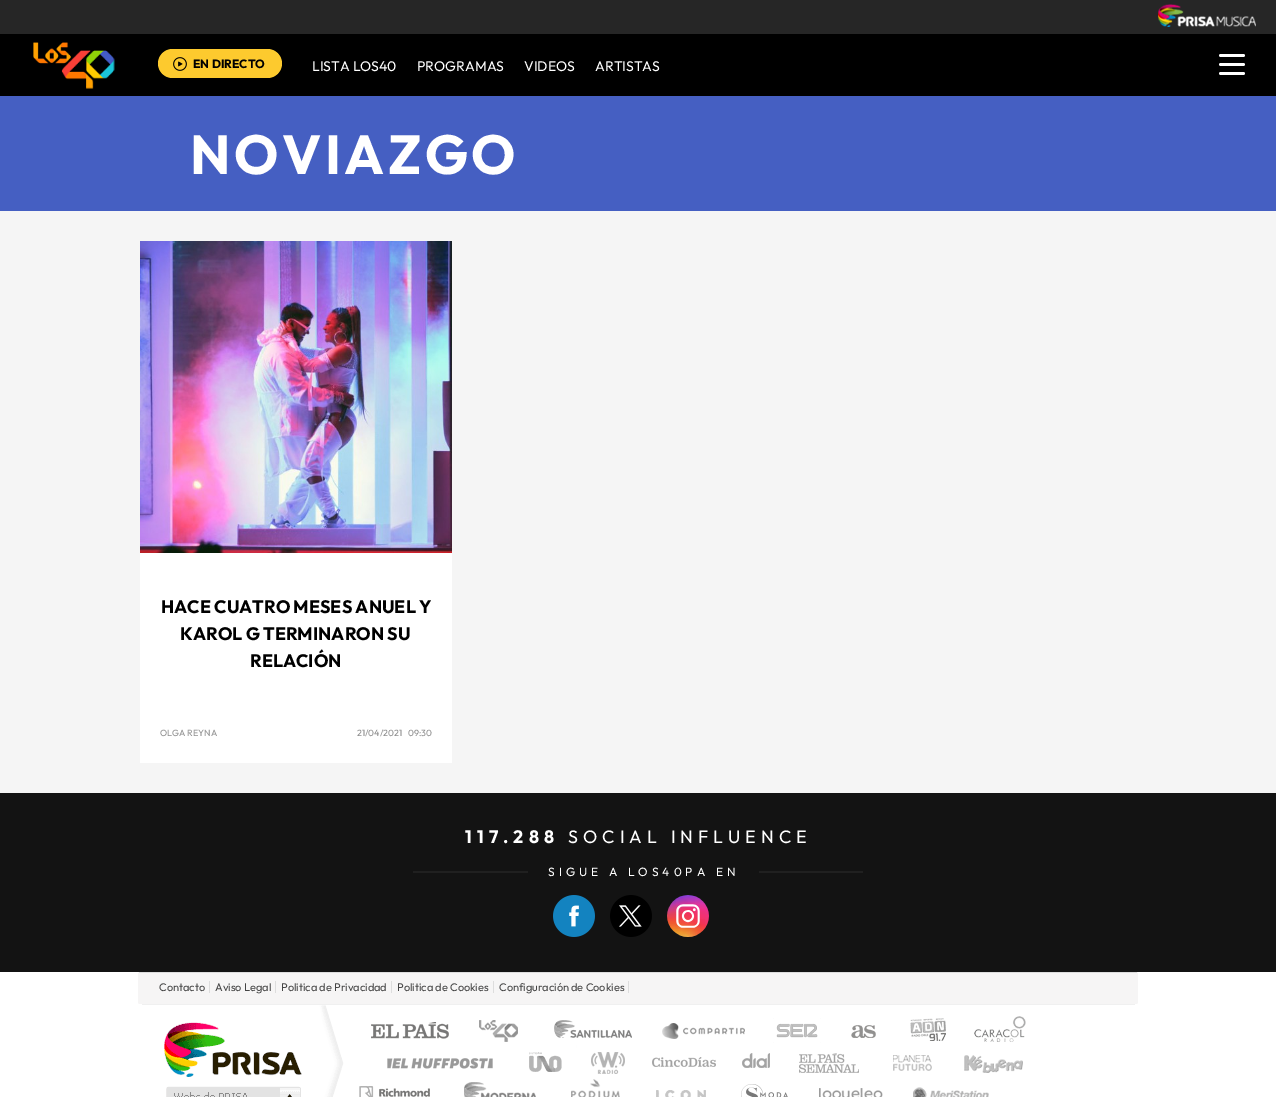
%!PS-Adobe-3.0
%%BoundingBox: 0 0 1276 1097
%%LanguageLevel: 3
%%Pages: 1
%%EndComments
%%BeginProlog
/m { moveto } bind def
/f { fill } bind def
/fn { [ exch dup neg 0 0 3 -1 roll 0 0 ] selectfont } def
/tx { moveto show } def
/bx { rectfill } def
/rr { 5 dict begin { /r /h /w /y /x } { exch def } forall
  x r add y moveto x w add y 2 copy h add r arct x w add y h add x 1 index r arct
  x y h add x y r arct x y 2 copy exch w add exch r arct closepath end } def
/im { 5 dict begin { /h /w /y /x /name } { exch def } forall
  gsave x y translate w h scale
  w h 8 [w 0 0 h 0 0] name (r) file false 3 colorimage grestore end } def
%%EndProlog
%%BeginSetup
<< /PageSize [1276 1097] >> setpagedevice
%%EndSetup
%%Page: 1 1
0 1097 translate 1 -1 scale
4 setmiterlimit
1 setgray
0 0 1276 1097 bx
0.149 setgray
0 0 1276 34 bx
(image0.raw) 1158 4 98 23 im
0 setgray
0 34 1276 62 bx
(image1.raw) 33 42 82 47 im
0.992 0.792 0.18 setrgbcolor
158 49 124 29 14.5 rr f
(image2.raw) 173 57 14 14 im
/Outfit-Bold 12 fn
0 setgray
(EN DIRECTO) 193 68 tx
/Outfit-Regular 14 fn
1 setgray
(LISTA LOS40) 312 71 tx
(PROGRAMAS) 417 71 tx
(VIDEOS) 524 71 tx
(ARTISTAS) 595 71 tx
(image3.raw) 1219 54 26 21 im
0.961 setgray
0 211 1276 582 bx
0.271 0.373 0.761 setrgbcolor
0 96 1276 115 bx
/Outfit-Bold 55 fn
1 setgray
190 174 m 3.5 0 (NOVIAZGO) ashow
(image4.raw) 140 241 312 312 im
140 553 312 210 bx
/Outfit-Bold 18 fn
0 setgray
(HACE CUATRO MESES ANUEL Y) 161 613 tx
(KAROL G TERMINARON SU) 180 640 tx
(RELACIÓN) 250 667 tx
/Outfit-Regular 9 fn
0.553 setgray
(OLGA REYNA) 160 736 tx
(21/04/2021   09:30) 357 736 tx
0.075 setgray
0 793 1276 179 bx
/Outfit-Bold 18 fn
1 setgray
465 843 m 5 0 (117.288) ashow
/Outfit-Regular 18 fn
568 843 m 5 0 (SOCIAL INFLUENCE) ashow
0.125 setgray
413 871 450 2 bx
0.075 setgray
528 871 231 2 bx
/Outfit-Regular 12 fn
1 setgray
548 876 m 4 0 (SIGUE A LOS40PA EN) ashow
(image5.raw) 553 895 42 42 im
(image6.raw) 610 895 42 42 im
(image7.raw) 667 895 42 42 im
0.965 0.961 0.961 setrgbcolor
138 972 1000 32 2 rr f
0.867 setgray
139 972 998 1 bx
209 981 1 12 bx
/Outfit-Regular 11 fn
0.267 setgray
(Contacto) 159 991 tx
0.867 setgray
275 981 1 12 bx
0.267 setgray
(Aviso Legal) 215 991 tx
0.867 setgray
391 981 1 12 bx
0.267 setgray
(Politica de Privacidad) 281 991 tx
0.867 setgray
493 981 1 12 bx
0.267 setgray
(Politica de Cookies) 397 991 tx
0.867 setgray
628 981 1 12 bx
0.267 setgray
(Configuración de Cookies) 499 991 tx
(image8.raw) 164 1005 862 92 im
0.941 setgray
142 1004 993 1 bx
showpage
%%EOF
